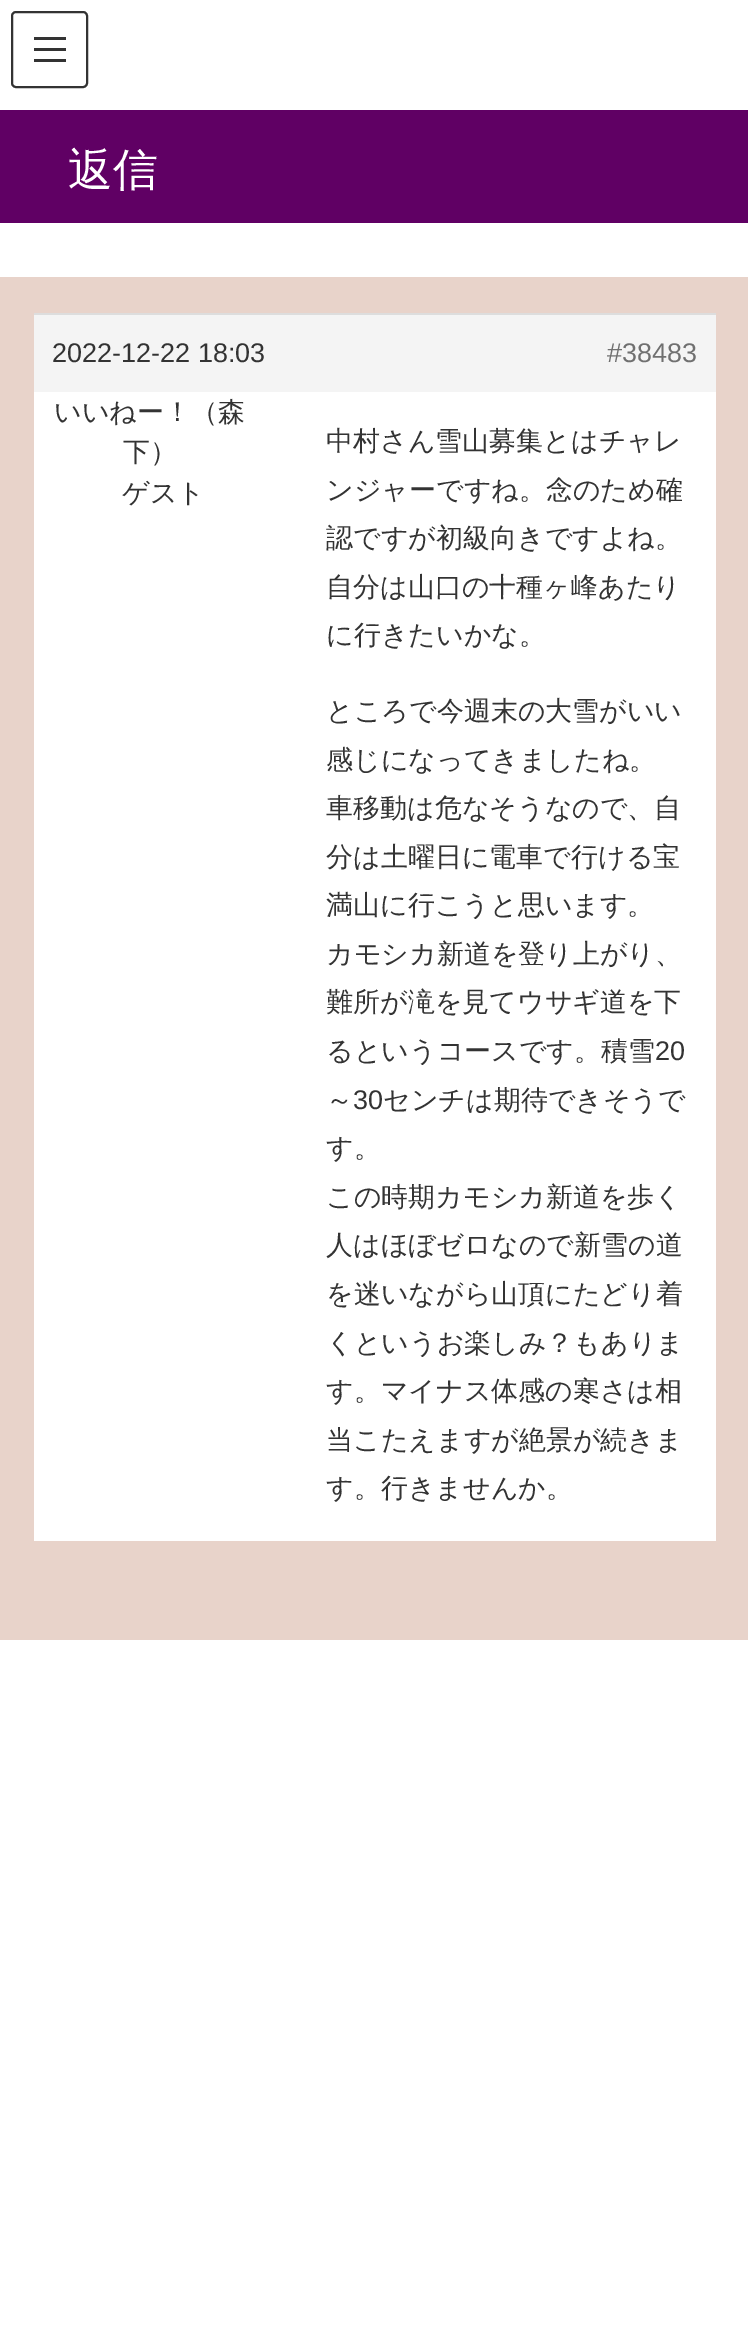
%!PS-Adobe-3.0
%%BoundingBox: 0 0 748 2345
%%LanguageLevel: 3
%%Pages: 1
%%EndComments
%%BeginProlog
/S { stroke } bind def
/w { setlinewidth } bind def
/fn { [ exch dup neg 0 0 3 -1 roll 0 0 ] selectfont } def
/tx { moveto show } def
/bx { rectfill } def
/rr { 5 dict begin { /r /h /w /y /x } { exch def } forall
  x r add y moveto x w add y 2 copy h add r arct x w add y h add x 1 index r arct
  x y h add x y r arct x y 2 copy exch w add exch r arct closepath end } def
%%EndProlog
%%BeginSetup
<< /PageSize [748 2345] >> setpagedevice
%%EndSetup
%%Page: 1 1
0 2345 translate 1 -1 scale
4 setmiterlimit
1 setgray
0 0 748 2345 bx
0.2 setgray
34 37 32 3 bx
34 48 32 3 bx
34 59 32 3 bx
2 w
12 12 75 75 4 rr S
0.376 0 0.392 setrgbcolor
0 110 748 113 bx
/WenQuanYiZenHei-Medium 45 fn
1 setgray
(返信) 68 185 tx
0.91 0.827 0.792 setrgbcolor
0 277 748 1363 bx
0.957 setgray
34 315 682 77 bx
0.867 setgray
34 313 682 2 bx
/LiberationSans-Regular 27 fn
0.2 setgray
(2022-12-22 18:03) 52 362 tx
0.439 setgray
(#38483) 607 362 tx
1 setgray
34 392 682 1149 bx
/WenQuanYiZenHei-Medium 27 fn
0.2 setgray
(いいねー！（森) 54 421 tx
(下）) 123 461 tx
(ゲスト) 122 502 tx
(中村さん雪山募集とはチャレ) 326 450 tx
(ンジャーですね。念のため確) 326 499 tx
(認ですが初級向きですよね。) 326 547 tx
(自分は山口の十種ヶ峰あたり) 326 596 tx
(に行きたいかな。) 326 644 tx
(ところで今週末の大雪がいい) 326 720 tx
(感じになってきましたね。) 326 769 tx
(車移動は危なそうなので、自) 326 817 tx
(分は土曜日に電車で行ける宝) 326 866 tx
(満山に行こうと思います。) 326 914 tx
(カモシカ新道を登り上がり、) 326 963 tx
(難所が滝を見てウサギ道を下) 326 1011 tx
(るというコースです。積雪) 326 1060 tx
/LiberationSans-Regular 27 fn
(20) 655 1060 tx
/WenQuanYiZenHei-Medium 27 fn
(～) 326 1109 tx
/LiberationSans-Regular 27 fn
(30) 353 1109 tx
/WenQuanYiZenHei-Medium 27 fn
(センチは期待できそうで) 383 1109 tx
(す。) 326 1157 tx
(この時期カモシカ新道を歩く) 326 1206 tx
(人はほぼゼロなので新雪の道) 326 1254 tx
(を迷いながら山頂にたどり着) 326 1303 tx
(くというお楽しみ？もありま) 326 1352 tx
(す。マイナス体感の寒さは相) 326 1400 tx
(当こたえますが絶景が続きま) 326 1449 tx
(す。行きませんか。) 326 1497 tx
showpage
%%EOF
